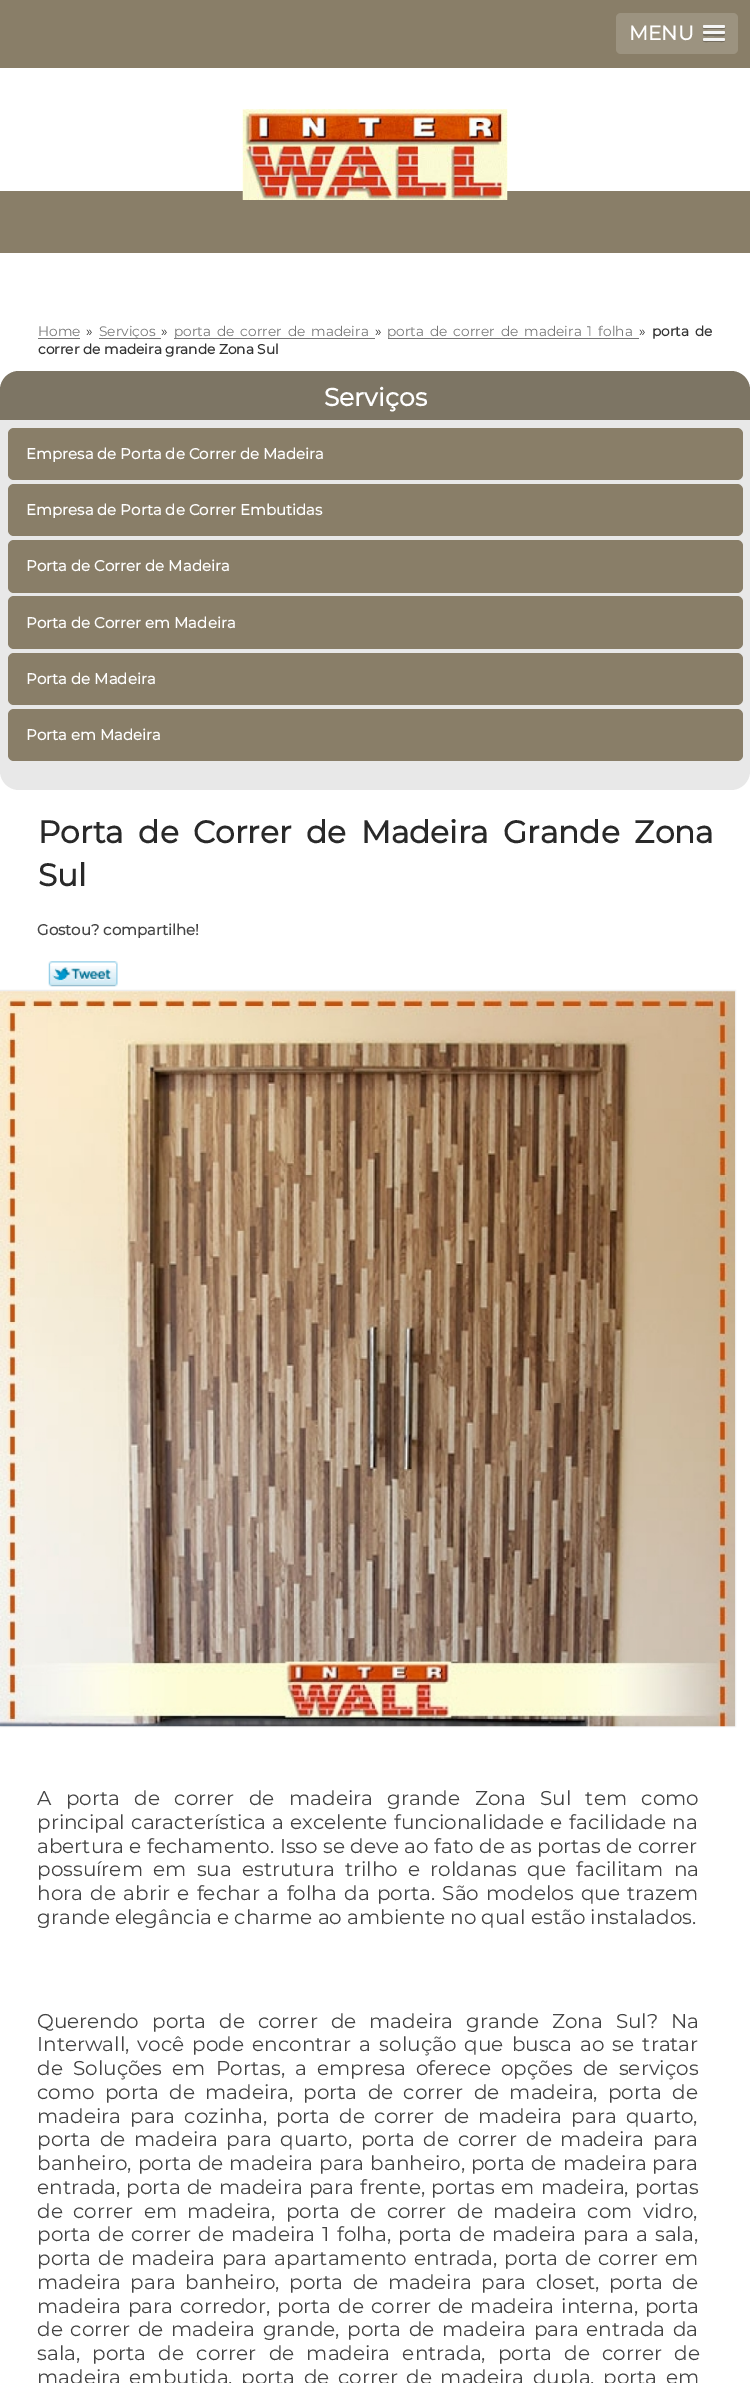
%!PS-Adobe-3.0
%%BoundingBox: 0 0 750 2383
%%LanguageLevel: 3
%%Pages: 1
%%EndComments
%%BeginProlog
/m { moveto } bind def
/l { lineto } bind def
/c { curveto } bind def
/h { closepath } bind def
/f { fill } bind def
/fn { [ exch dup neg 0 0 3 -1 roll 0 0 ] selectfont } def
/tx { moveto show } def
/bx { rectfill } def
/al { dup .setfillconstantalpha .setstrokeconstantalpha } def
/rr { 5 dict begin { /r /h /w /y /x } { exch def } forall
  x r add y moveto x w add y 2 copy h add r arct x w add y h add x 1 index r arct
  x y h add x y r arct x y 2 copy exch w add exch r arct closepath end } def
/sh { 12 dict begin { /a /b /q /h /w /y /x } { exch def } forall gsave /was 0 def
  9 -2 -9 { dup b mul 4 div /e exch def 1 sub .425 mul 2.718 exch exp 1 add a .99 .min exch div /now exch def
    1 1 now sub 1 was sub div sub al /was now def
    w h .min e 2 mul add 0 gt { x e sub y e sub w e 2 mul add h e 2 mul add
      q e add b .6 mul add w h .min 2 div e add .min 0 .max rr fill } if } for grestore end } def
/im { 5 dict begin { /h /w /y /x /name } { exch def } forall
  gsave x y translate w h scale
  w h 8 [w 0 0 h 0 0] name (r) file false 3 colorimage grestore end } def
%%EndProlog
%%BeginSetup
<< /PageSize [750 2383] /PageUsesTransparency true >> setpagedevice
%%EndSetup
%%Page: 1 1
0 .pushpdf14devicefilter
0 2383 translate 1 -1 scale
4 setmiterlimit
1 setgray
0 0 750 2383 bx
0.537 0.494 0.408 setrgbcolor
0 0 750 68 bx
0.612 0.576 0.502 setrgbcolor
616 13 122 41 5 rr f
/Montserrat-Bold 20 fn
1 setgray
(MENU) 629 40 tx
0.459 0.431 0.376 setrgbcolor
703 27.5 m 702.5 29.5 706.5 29 707.5 29 c 720.5 29 l 721 29 726 29.5 725 27 c 724 27.5 l 722 27.5 703.5 27.5 703 27.5 c h f
0.961 setgray
703 25 22 3 1.5 rr f
0.459 0.431 0.376 setrgbcolor
703.5 33.5 m 701.5 36.5 707 36 707.5 36 c 714 36 l 716 36 724 36.5 724.5 35.5 c 725 34.5 725 34 724.5 33.5 c 724 34 704.5 34 703.5 33.5 c h f
0.961 setgray
703 31 22 3 1.5 rr f
0.459 0.431 0.376 setrgbcolor
703 40 m 702 42.5 707 42 707.5 42 c 720.5 42 l 720.5 42 727 42.5 724.5 39.5 c 724 40 l h f
0.961 setgray
703 38 22 3 1.5 rr f
0.537 0.494 0.408 setrgbcolor
0 191 750 62 bx
(image0.raw) 242 109 266 91 im
/Montserrat-Thin 13.75 fn
0.467 setgray
(Home) 38 336 tx
38 338 42 1 bx
0.2 setgray
(») 86 336 tx
0.467 setgray
99 338 62 1 bx
(Serviços) 99 336 tx
0.2 setgray
(») 161 336 tx
0.467 setgray
174 338 201 1 bx
174 336 m 2.25 0 32 (porta de correr de madeira) widthshow
0.2 setgray
(») 375 336 tx
0.467 setgray
388 338 251 1 bx
387 336 m 2.25 0 32 (porta de correr de madeira 1 folha) widthshow
0.2 setgray
(») 639 336 tx
/Montserrat-Bold 13.75 fn
652 336 m 2.25 0 32 (porta de) widthshow
(correr de madeira grande Zona Sul) 38 354 tx
0.537 0.494 0.408 setrgbcolor
19 371 m 731 371 l 741.5 371 750 379.5 750 390 c 750 424 l 0 424 l 0 390 l 0 379.5 8.5 371 19 371 c h f
0.23 al
0.333 setgray
19 371 m 731 371 l 741.5 371 750 379.5 750 390 c 750 424 l 0 424 l 0 390 l 0 379.5 8.5 371 19 371 c h f
/Montserrat-Bold 25 fn
1 al
1 setgray
(Serviços) 324 406 tx
0.91 setgray
0 420 m 750 420 l 750 771 l 750 781.5 741.5 790 731 790 c 19 790 l 8.5 790 0 781.5 0 771 c h f
0.537 0.494 0.408 setrgbcolor
8 428 735 52 6 rr f
/Montserrat-Bold 15 fn
1 setgray
(Empresa de Porta de Correr de Madeira) 26 459 tx
0.537 0.494 0.408 setrgbcolor
8 484 735 52 6 rr f
1 setgray
(Empresa de Porta de Correr Embutidas) 26 515 tx
0.537 0.494 0.408 setrgbcolor
8 540 735 53 6 rr f
1 setgray
(Porta de Correr de Madeira) 26 571 tx
0.537 0.494 0.408 setrgbcolor
8 596 735 53 6 rr f
1 setgray
(Porta de Correr em Madeira) 26 628 tx
0.537 0.494 0.408 setrgbcolor
8 653 735 52 6 rr f
1 setgray
(Porta de Madeira) 26 684 tx
0.537 0.494 0.408 setrgbcolor
8 709 735 52 6 rr f
1 setgray
(Porta em Madeira) 26 740 tx
/Montserrat-Bold 31.25 fn
0.161 setgray
38 843 m 6.5 0 32 (Porta de Correr de Madeira Grande Zona) widthshow
(Sul) 38 886 tx
/Montserrat-Bold 15 fn
0.267 setgray
(Gostou? compartilhe!) 37 935 tx
(image1.raw) 48 961 70 26 im
0.8 setgray
0 991 735 735 0 1 1 sh
(image2.raw) 0 991 735 736 im
/Montserrat-Thin 20 fn
0.267 setgray
37 1805 m 9.25 0 32 (A porta de correr de madeira grande Zona Sul tem como) widthshow
37 1829 m 1.25 0 32 (principal característica a excelente funcionalidade e facilidade na) widthshow
37 1853 m 0.25 0 32 (abertura e fechamento. Isso se deve ao fato de as portas de correr) widthshow
37 1876 m 5 0 32 (possuírem em sua estrutura trilho e roldanas que facilitam na) widthshow
37 1900 m 2.1 0 32 (hora de abrir e fechar a folha da porta. São modelos que trazem) widthshow
(grande elegância e charme ao ambiente no qual estão instalados.) 37 1924 tx
37 2028 m 7.75 0 32 (Querendo porta de correr de madeira grande Zona Sul? Na) widthshow
37 2051 m 3 0 32 (Interwall, você pode encontrar a solução que busca ao se tratar) widthshow
37 2075 m 5 0 32 (de Soluções em Portas, a empresa oferece opções de serviços) widthshow
37 2099 m 5 0 32 (como porta de madeira, porta de correr de madeira, porta de) widthshow
37 2123 m 4 0 32 (madeira para cozinha, porta de correr de madeira para quarto,) widthshow
37 2146 m 3.4 0 32 (porta de madeira para quarto, porta de correr de madeira para) widthshow
37 2170 m 0.75 0 32 (banheiro, porta de madeira para banheiro, porta de madeira para) widthshow
37 2194 m 1 0 32 (entrada, porta de madeira para frente, portas em madeira, portas) widthshow
37 2218 m 5.25 0 32 (de correr em madeira, porta de correr de madeira com vidro,) widthshow
37 2241 m 2 0 32 (porta de correr de madeira 1 folha, porta de madeira para a sala,) widthshow
37 2265 m 1.9 0 32 (porta de madeira para apartamento entrada, porta de correr em) widthshow
37 2289 m 4.25 0 32 (madeira para banheiro, porta de madeira para closet, porta de) widthshow
37 2313 m 1.75 0 32 (madeira para corredor, porta de correr de madeira interna, porta) widthshow
37 2336 m 2.4 0 32 (de correr de madeira grande, porta de madeira para entrada da) widthshow
37 2360 m 7 0 32 (sala, porta de correr de madeira entrada, porta de correr de) widthshow
37 2384 m 3.25 0 32 (madeira embutida, porta de correr de madeira dupla, porta em) widthshow
.poppdf14devicefilter showpage
%%EOF
